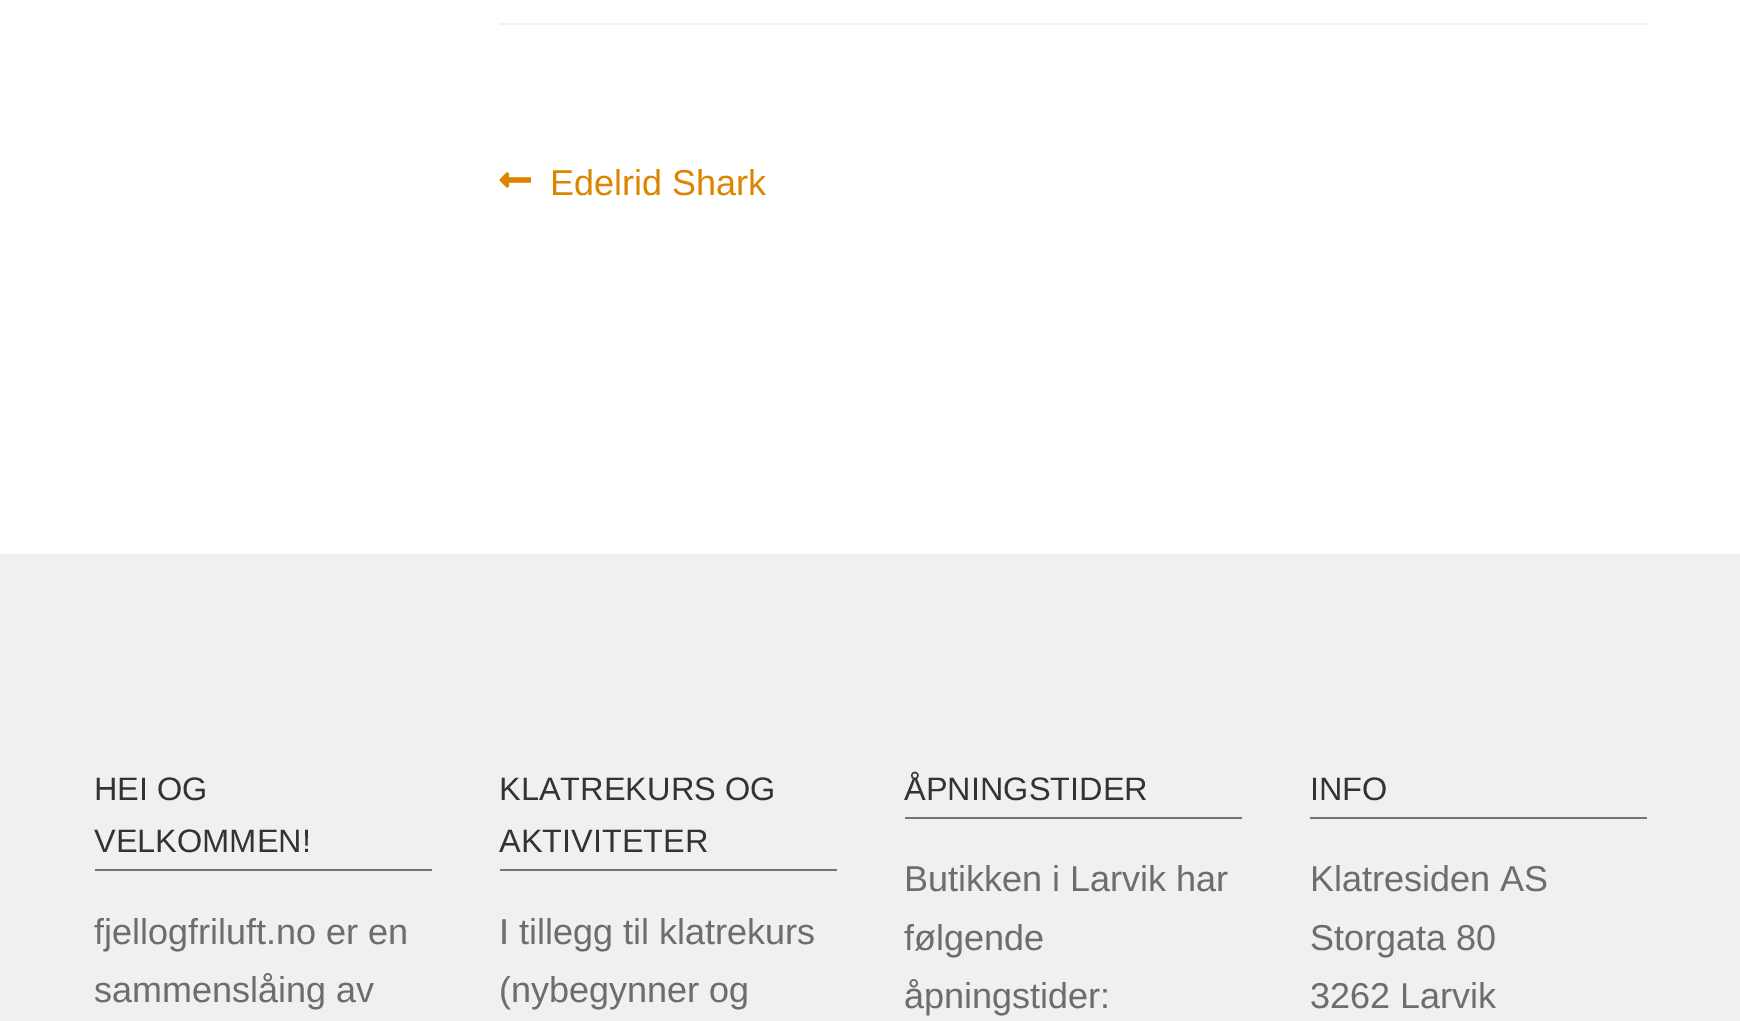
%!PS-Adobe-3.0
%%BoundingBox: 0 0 1740 1021
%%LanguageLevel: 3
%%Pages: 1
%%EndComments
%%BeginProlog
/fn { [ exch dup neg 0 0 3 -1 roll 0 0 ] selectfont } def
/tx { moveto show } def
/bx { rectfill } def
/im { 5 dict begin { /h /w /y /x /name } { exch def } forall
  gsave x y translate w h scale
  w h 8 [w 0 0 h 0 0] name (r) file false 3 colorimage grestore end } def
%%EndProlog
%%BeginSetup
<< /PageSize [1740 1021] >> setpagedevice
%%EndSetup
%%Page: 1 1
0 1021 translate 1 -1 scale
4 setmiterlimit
1 setgray
0 0 1740 1021 bx
0.949 setgray
500 23 1147 2 bx
(image0.raw) 499 172 33 16 im
/LiberationSans-Regular 36 fn
0.867 0.522 0 setrgbcolor
(Edelrid Shark) 550 195 tx
0.941 setgray
0 554 1740 467 bx
0.459 setgray
95 869 337 2 bx
/LiberationSans-Regular 32.5 fn
0.2 setgray
(HEI OG) 94 800 tx
(VELKOMMEN!) 94 852 tx
/LiberationSans-Regular 36 fn
0.427 setgray
(fjellogfriluft.no er en) 94 944 tx
(sammenslåing av) 94 1002 tx
0.459 setgray
500 869 337 2 bx
/LiberationSans-Regular 32.5 fn
0.2 setgray
(KLATREKURS OG) 499 800 tx
(AKTIVITETER) 499 852 tx
/LiberationSans-Regular 36 fn
0.427 setgray
(I tillegg til klatrekurs) 499 944 tx
(\(nybegynner og) 499 1002 tx
0.459 setgray
905 817 337 2 bx
/LiberationSans-Regular 32.5 fn
0.2 setgray
(ÅPNINGSTIDER) 904 800 tx
/LiberationSans-Regular 36 fn
0.427 setgray
(Butikken i Larvik har) 904 891 tx
(følgende) 904 950 tx
(åpningstider:) 904 1008 tx
0.459 setgray
1310 817 337 2 bx
/LiberationSans-Regular 32.5 fn
0.2 setgray
(INFO) 1310 800 tx
/LiberationSans-Regular 36 fn
0.427 setgray
(Klatresiden AS) 1310 891 tx
(Storgata 80) 1310 950 tx
(3262 Larvik) 1310 1008 tx
showpage
%%EOF
